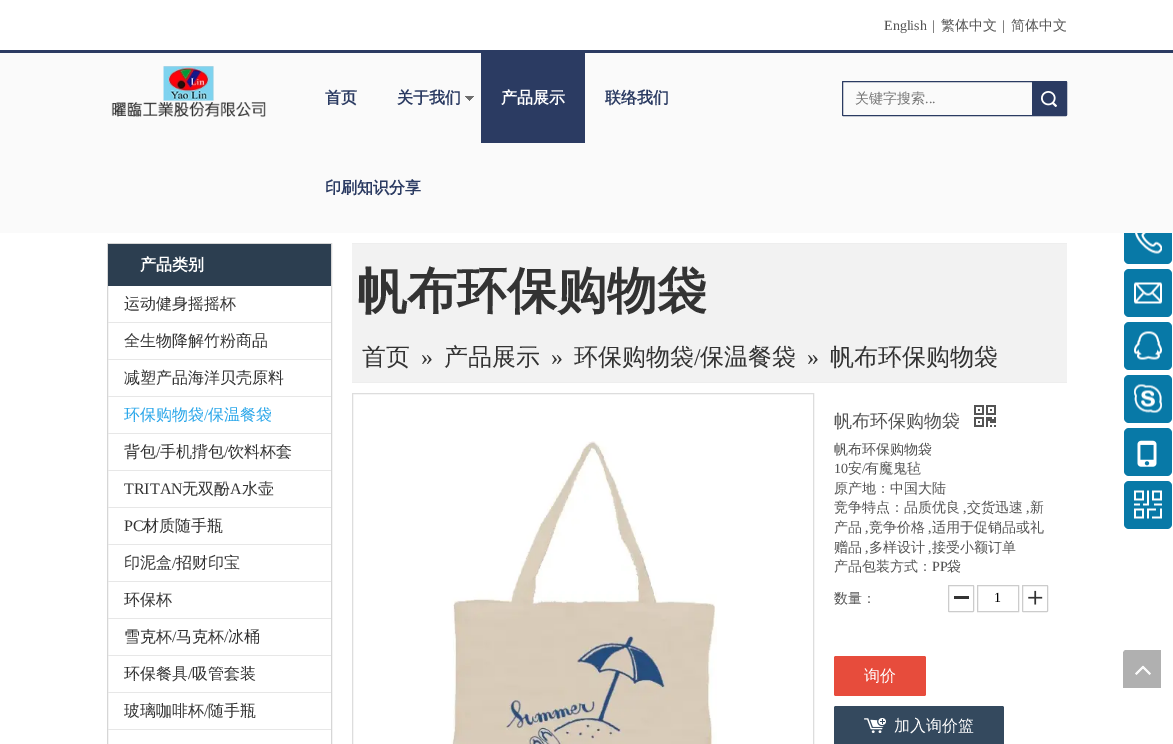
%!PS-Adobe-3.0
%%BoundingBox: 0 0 1173 744
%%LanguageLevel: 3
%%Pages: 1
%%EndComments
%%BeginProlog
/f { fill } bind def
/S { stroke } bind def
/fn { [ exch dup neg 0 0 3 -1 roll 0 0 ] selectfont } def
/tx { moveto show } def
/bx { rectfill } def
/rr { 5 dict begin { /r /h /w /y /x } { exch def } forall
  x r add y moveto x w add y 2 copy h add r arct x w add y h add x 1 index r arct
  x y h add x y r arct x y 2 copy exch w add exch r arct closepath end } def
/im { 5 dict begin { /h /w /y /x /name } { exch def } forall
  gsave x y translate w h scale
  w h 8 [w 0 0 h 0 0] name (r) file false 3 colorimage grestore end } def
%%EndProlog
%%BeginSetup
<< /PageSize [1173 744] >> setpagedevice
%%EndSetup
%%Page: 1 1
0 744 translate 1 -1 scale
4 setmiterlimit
1 setgray
0 0 1173 744 bx
/LiberationSerif-Regular 14 fn
0.329 setgray
(English) 884 30 tx
(|) 932 30 tx
/WenQuanYiZenHei-Medium 14 fn
(繁体中文) 941 30 tx
/LiberationSerif-Regular 14 fn
(|) 1002 30 tx
/WenQuanYiZenHei-Medium 14 fn
(简体中文) 1011 30 tx
0.031 0.475 0.655 setrgbcolor
1124 216 48 48 5 rr f
0.98 setgray
0 53 1173 180 bx
0.169 0.231 0.384 setrgbcolor
0 50 1173 3 bx
(image0.raw) 111 66 155 51 im
/WenQuanYiZenHei-Bold 16 fn
(首页) 325 103 tx
(image1.raw) 465 96 9 5 im
(关于我们) 397 103 tx
481 53 104 90 bx
1 setgray
(产品展示) 501 103 tx
0.169 0.231 0.384 setrgbcolor
(联络我们) 605 103 tx
(印刷知识分享) 325 193 tx
842.5 81.5 224 34 0.5 rr S
/WenQuanYiZenHei-Medium 14 fn
0.459 setgray
(关键字搜索) 855 103 tx
/LiberationSerif-Regular 14 fn
(...) 925 103 tx
0.169 0.231 0.384 setrgbcolor
1032 82 34 33 bx
(image2.raw) 1041 91 16 16 im
0.839 setgray
107.5 243.5 224 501 rectstroke
0.173 0.243 0.314 setrgbcolor
108 244 223 42 bx
/WenQuanYiZenHei-Bold 16 fn
1 setgray
(产品类别) 140 270 tx
/WenQuanYiZenHei-Medium 16 fn
0.2 setgray
(运动健身摇摇杯) 124 309 tx
0.906 setgray
108 322 223 1 bx
0.2 setgray
(全生物降解竹粉商品) 124 346 tx
0.906 setgray
108 359 223 1 bx
0.2 setgray
(减塑产品海洋贝壳原料) 124 383 tx
0.906 setgray
108 396 223 1 bx
0.165 0.655 0.918 setrgbcolor
(环保购物袋) 124 420 tx
/LiberationSerif-Regular 16 fn
(/) 204 420 tx
/WenQuanYiZenHei-Medium 16 fn
(保温餐袋) 208 420 tx
0.906 setgray
108 433 223 1 bx
0.2 setgray
(背包) 124 457 tx
/LiberationSerif-Regular 16 fn
(/) 156 457 tx
/WenQuanYiZenHei-Medium 16 fn
(手机揹包) 160 457 tx
/LiberationSerif-Regular 16 fn
(/) 224 457 tx
/WenQuanYiZenHei-Medium 16 fn
(饮料杯套) 228 457 tx
0.906 setgray
108 470 223 1 bx
/LiberationSerif-Regular 16 fn
0.2 setgray
(TRITAN) 124 494 tx
/WenQuanYiZenHei-Medium 16 fn
(无双酚) 182 494 tx
/LiberationSerif-Regular 16 fn
(A) 230 494 tx
/WenQuanYiZenHei-Medium 16 fn
(水壶) 242 494 tx
0.906 setgray
108 507 223 1 bx
/LiberationSerif-Regular 16 fn
0.2 setgray
(PC) 124 531 tx
/WenQuanYiZenHei-Medium 16 fn
(材质随手瓶) 143 531 tx
0.906 setgray
108 544 223 1 bx
0.2 setgray
(印泥盒) 124 568 tx
/LiberationSerif-Regular 16 fn
(/) 172 568 tx
/WenQuanYiZenHei-Medium 16 fn
(招财印宝) 176 568 tx
0.906 setgray
108 581 223 1 bx
0.2 setgray
(环保杯) 124 605 tx
0.906 setgray
108 618 223 1 bx
0.2 setgray
(雪克杯) 124 642 tx
/LiberationSerif-Regular 16 fn
(/) 172 642 tx
/WenQuanYiZenHei-Medium 16 fn
(马克杯) 176 642 tx
/LiberationSerif-Regular 16 fn
(/) 224 642 tx
/WenQuanYiZenHei-Medium 16 fn
(冰桶) 228 642 tx
0.906 setgray
108 655 223 1 bx
0.2 setgray
(环保餐具) 124 679 tx
/LiberationSerif-Regular 16 fn
(/) 188 679 tx
/WenQuanYiZenHei-Medium 16 fn
(吸管套装) 192 679 tx
0.906 setgray
108 692 223 1 bx
0.2 setgray
(玻璃咖啡杯) 124 716 tx
/LiberationSerif-Regular 16 fn
(/) 204 716 tx
/WenQuanYiZenHei-Medium 16 fn
(随手瓶) 208 716 tx
0.906 setgray
108 729 223 1 bx
0.949 setgray
352 244 715 138 bx
0.933 setgray
352 243 715 1 bx
352 382 715 1 bx
/WenQuanYiZenHei-Bold 50 fn
0.2 setgray
(帆布环保购物袋) 357 308 tx
/WenQuanYiZenHei-Medium 24 fn
(首页) 362 365 tx
/LiberationSerif-Regular 24 fn
(») 421 365 tx
/WenQuanYiZenHei-Medium 24 fn
(产品展示) 444 365 tx
/LiberationSerif-Regular 24 fn
(») 551 365 tx
/WenQuanYiZenHei-Medium 24 fn
(环保购物袋) 574 365 tx
/LiberationSerif-Regular 24 fn
(/) 694 365 tx
/WenQuanYiZenHei-Medium 24 fn
(保温餐袋) 700 365 tx
/LiberationSerif-Regular 24 fn
(») 807 365 tx
/WenQuanYiZenHei-Medium 24 fn
(帆布环保购物袋) 830 365 tx
0.867 setgray
352.5 393.5 461 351 rectstroke
(image3.raw) 451 441 266 303 im
/WenQuanYiZenHei-Medium 18 fn
0.329 setgray
(帆布环保购物袋) 834 427 tx
(image4.raw) 974 405 22 22 im
/WenQuanYiZenHei-Medium 14 fn
(帆布环保购物袋) 834 454 tx
/LiberationSerif-Regular 14 fn
(10) 834 473 tx
/WenQuanYiZenHei-Medium 14 fn
(安) 848 473 tx
/LiberationSerif-Regular 14 fn
(/) 862 473 tx
/WenQuanYiZenHei-Medium 14 fn
(有魔鬼毡) 865 473 tx
(原产地：中国大陆) 834 493 tx
(竞争特点：品质优良) 834 512 tx
/LiberationSerif-Regular 14 fn
(,) 963 512 tx
/WenQuanYiZenHei-Medium 14 fn
(交货迅速) 967 512 tx
/LiberationSerif-Regular 14 fn
(,) 1026 512 tx
/WenQuanYiZenHei-Medium 14 fn
(新) 1030 512 tx
(产品) 834 532 tx
/LiberationSerif-Regular 14 fn
(,) 865 532 tx
/WenQuanYiZenHei-Medium 14 fn
(竞争价格) 869 532 tx
/LiberationSerif-Regular 14 fn
(,) 928 532 tx
/WenQuanYiZenHei-Medium 14 fn
(适用于促销品或礼) 932 532 tx
(赠品) 834 552 tx
/LiberationSerif-Regular 14 fn
(,) 865 552 tx
/WenQuanYiZenHei-Medium 14 fn
(多样设计) 869 552 tx
/LiberationSerif-Regular 14 fn
(,) 928 552 tx
/WenQuanYiZenHei-Medium 14 fn
(接受小额订单) 932 552 tx
(产品包装方式：) 834 571 tx
/LiberationSerif-Regular 14 fn
(PP) 932 571 tx
/WenQuanYiZenHei-Medium 14 fn
(袋) 947 571 tx
(数量：) 834 603 tx
0.2 setgray
954 596 15 3 bx
0.8 setgray
948.5 585.5 25 26 0.5 rr S
977.5 585.5 41 26 rectstroke
/LiberationSerif-Regular 14 fn
0 setgray
(1) 994 602 tx
(image5.raw) 1028 590 15 15 im
0.8 setgray
1022.5 585.5 25 26 0.5 rr S
0.906 0.298 0.235 setrgbcolor
834 656 92 40 2 rr f
/WenQuanYiZenHei-Medium 16 fn
1 setgray
(询价) 864 681 tx
0.204 0.286 0.369 setrgbcolor
834 706 170 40 2 rr f
(image6.raw) 864 718 22 15 im
1 setgray
(加入询价篮) 894 731 tx
(image7.raw) 1135 233 27 21 im
0.031 0.475 0.655 setrgbcolor
1124 269 48 48 5 rr f
(image8.raw) 1134 282 28 22 im
1124 322 48 48 5 rr f
(image9.raw) 1134 331 28 29 im
1124 375 48 48 5 rr f
(image10.raw) 1134 384 28 29 im
1124 428 48 48 5 rr f
(image11.raw) 1137 440 20 27 im
1124 481 48 48 5 rr f
(image12.raw) 1134 490 28 29 im
(image13.raw) 1123 650 38 38 im
showpage
%%EOF
